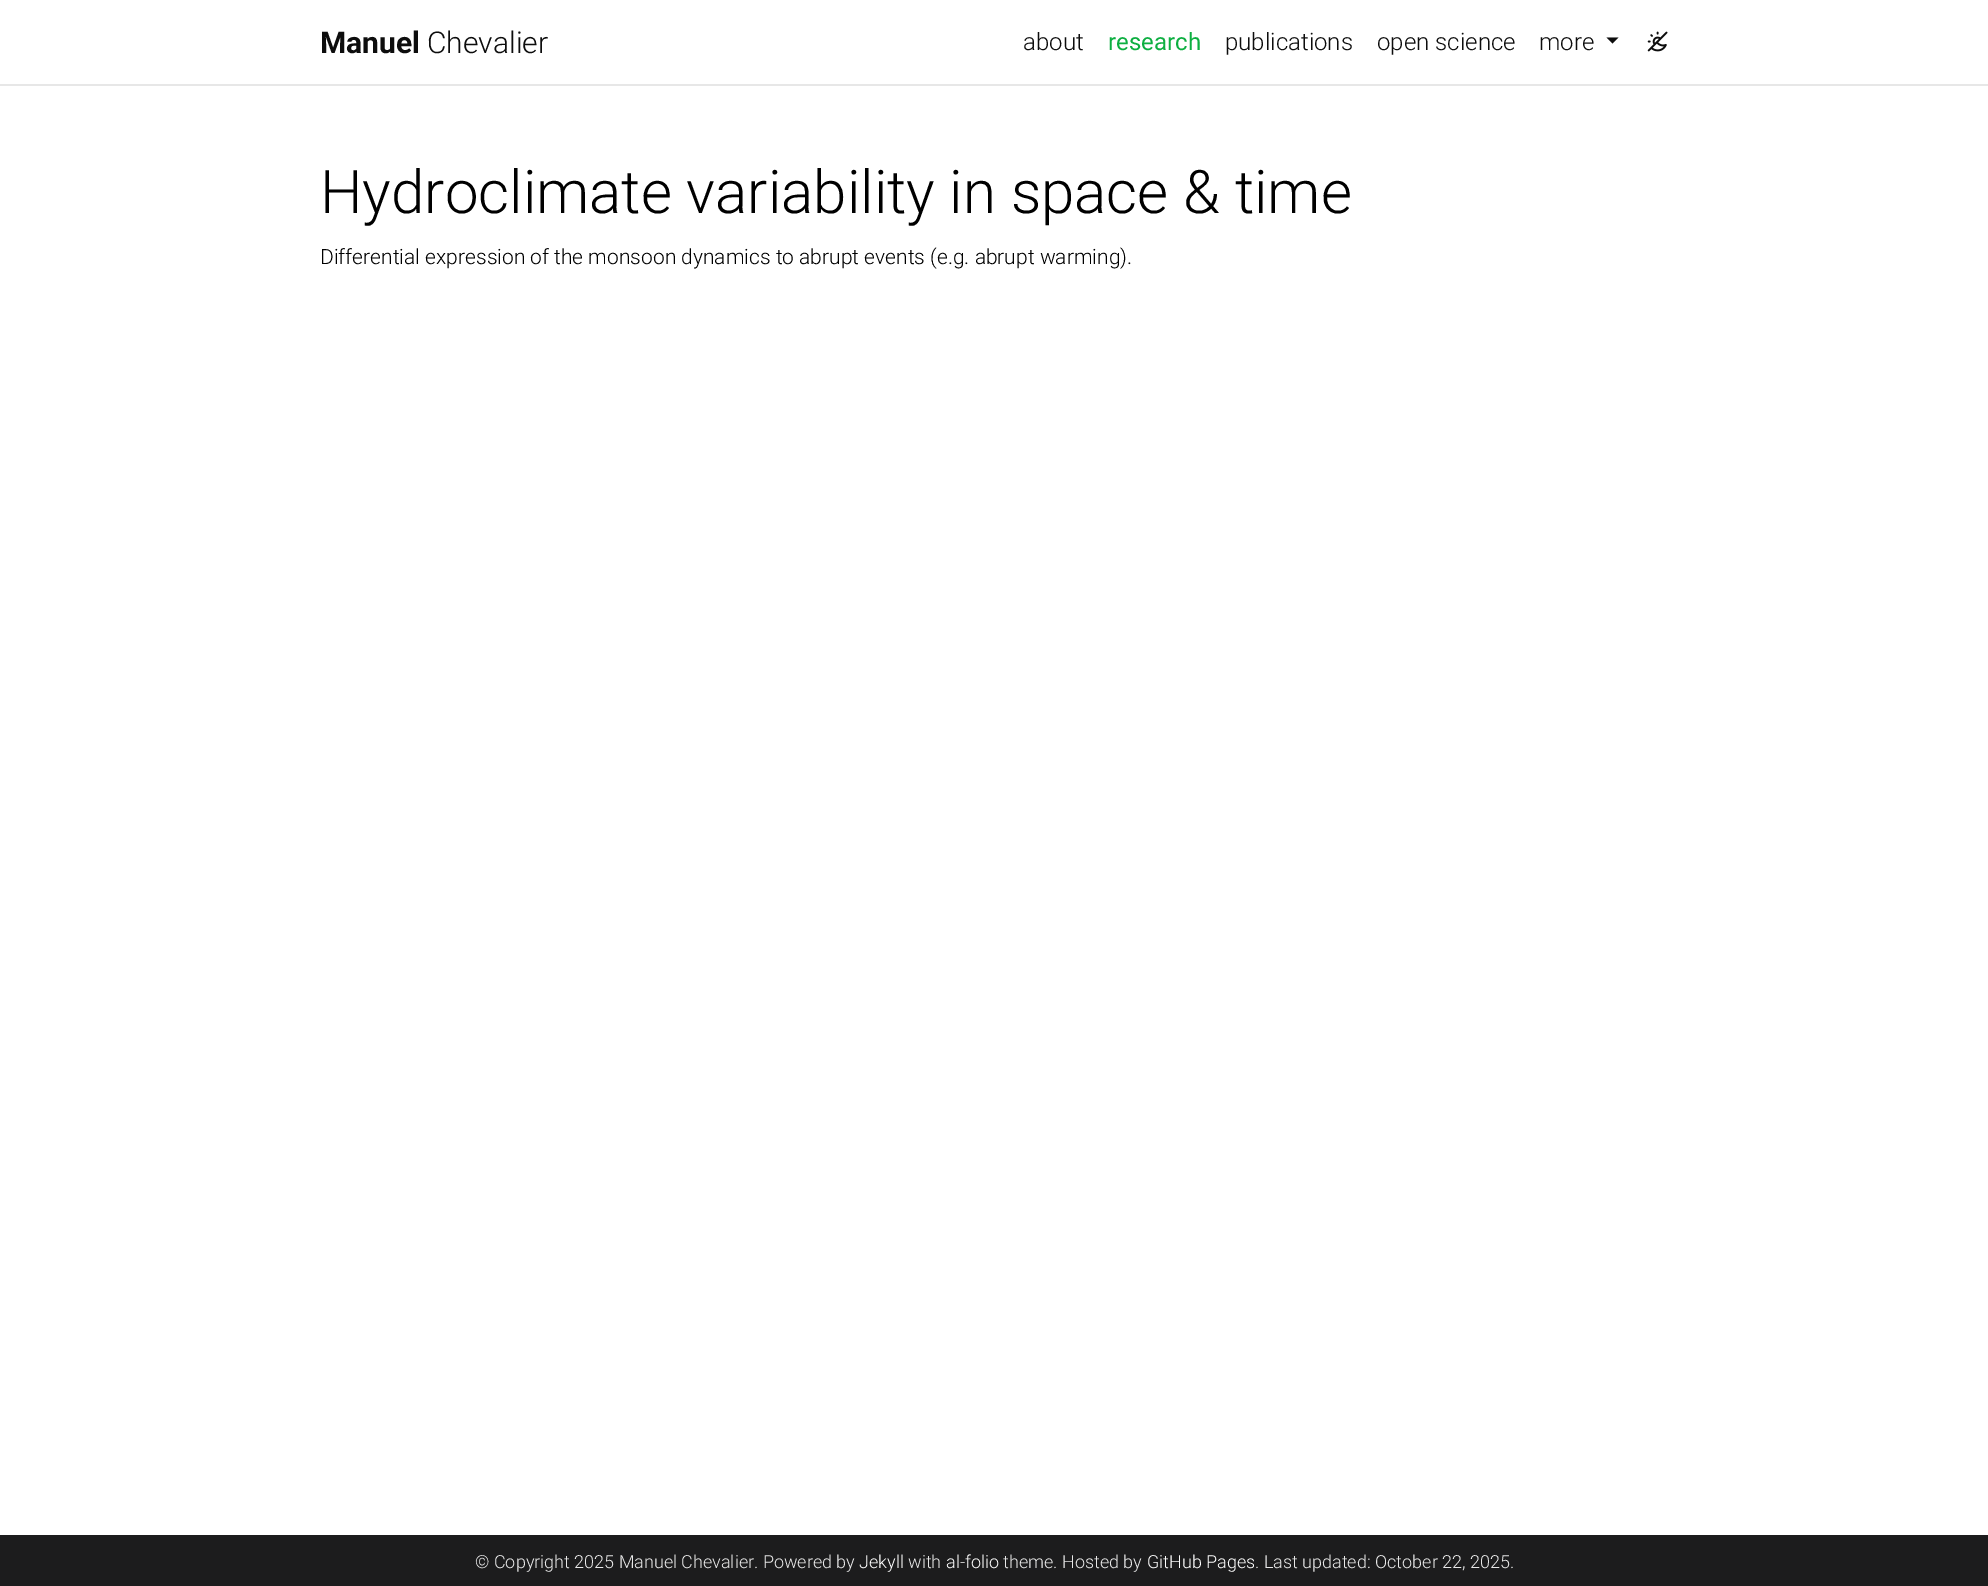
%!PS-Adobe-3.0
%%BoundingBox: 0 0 1988 1586
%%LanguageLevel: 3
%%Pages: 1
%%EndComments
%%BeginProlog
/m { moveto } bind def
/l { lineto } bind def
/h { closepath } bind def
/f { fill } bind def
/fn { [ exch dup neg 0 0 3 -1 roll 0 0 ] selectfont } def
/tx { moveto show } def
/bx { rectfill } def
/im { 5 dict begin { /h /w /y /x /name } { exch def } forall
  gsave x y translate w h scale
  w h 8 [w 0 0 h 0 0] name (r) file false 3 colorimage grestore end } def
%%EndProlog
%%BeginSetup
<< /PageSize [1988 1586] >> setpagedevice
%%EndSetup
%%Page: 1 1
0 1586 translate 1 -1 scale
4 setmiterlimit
1 setgray
0 0 1988 1586 bx
0.906 setgray
0 84 1988 2 bx
/Roboto-Bold 30 fn
0.051 setgray
(Manuel) 320 53 tx
/Roboto-Light 30 fn
(Chevalier) 427 53 tx
/Roboto-Light 24 fn
(about) 1023 50 tx
/Roboto-Regular 24 fn
0.051 0.686 0.255 setrgbcolor
(research) 1108 50 tx
/Roboto-Light 24 fn
0.051 setgray
(publications) 1225 50 tx
(open science) 1377 50 tx
(more) 1539 50 tx
1606.5 37.5 m 1618.5 37.5 l 1612.5 43.5 l h f
(image0.raw) 1647 31 21 21 im
/Roboto-Light 60 fn
0 setgray
(Hydroclimate variability in space & time) 320 213 tx
/Roboto-Light 21 fn
(Differential expression of the monsoon dynamics to abrupt events \(e.g. abrupt warming\).) 320 264 tx
0.11 0.11 0.114 setrgbcolor
0 1535 1988 51 bx
/Roboto-Light 18 fn
0.91 setgray
(© Copyright 2025 Manuel Chevalier. Powered by) 475 1568 tx
1 setgray
(Jekyll) 859 1568 tx
0.91 setgray
(with) 908 1568 tx
1 setgray
(al-folio) 946 1568 tx
0.91 setgray
(theme. Hosted by) 1003 1568 tx
1 setgray
(GitHub Pages) 1147 1568 tx
0.91 setgray
(. Last updated: October 22, 2025.) 1255 1568 tx
showpage
%%EOF
